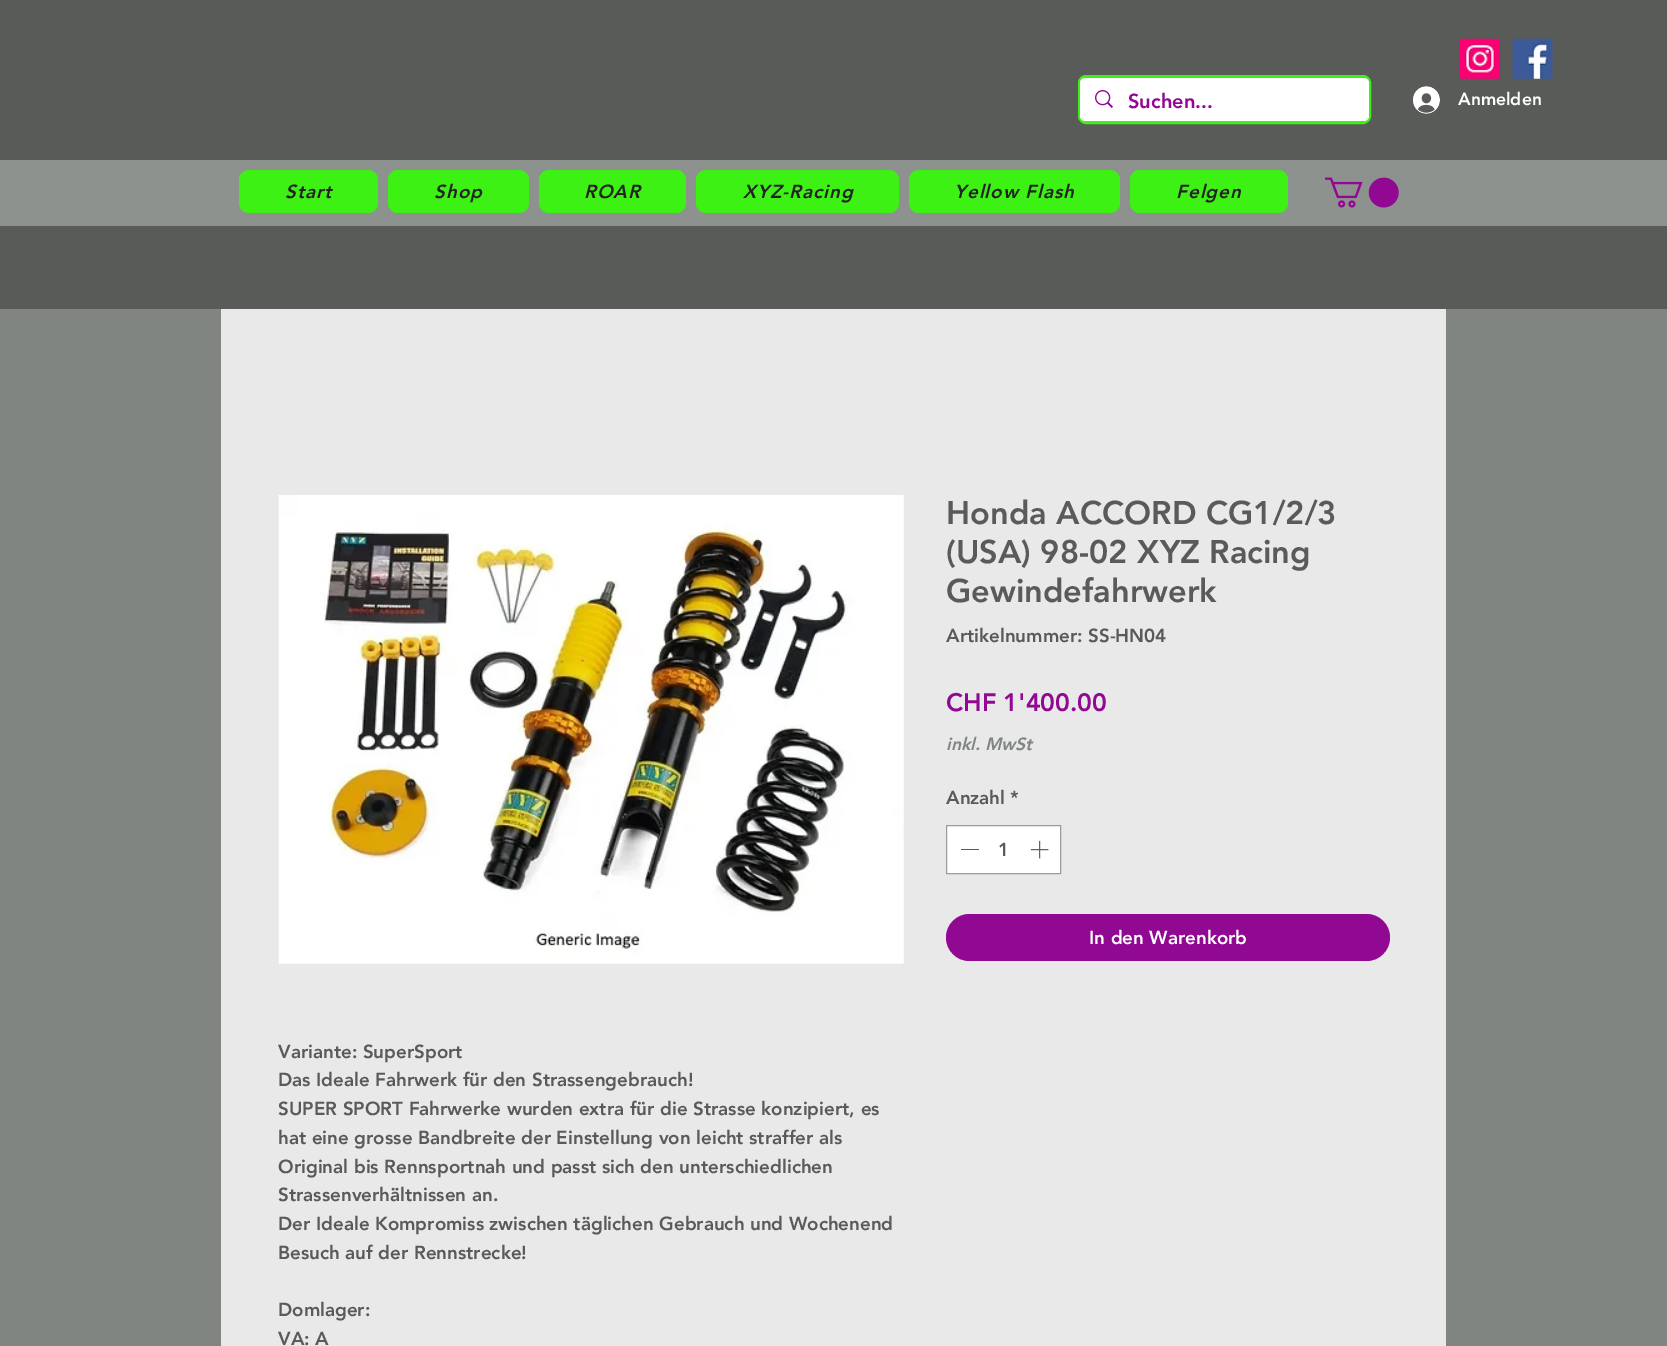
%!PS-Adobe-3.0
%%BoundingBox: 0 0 1667 1346
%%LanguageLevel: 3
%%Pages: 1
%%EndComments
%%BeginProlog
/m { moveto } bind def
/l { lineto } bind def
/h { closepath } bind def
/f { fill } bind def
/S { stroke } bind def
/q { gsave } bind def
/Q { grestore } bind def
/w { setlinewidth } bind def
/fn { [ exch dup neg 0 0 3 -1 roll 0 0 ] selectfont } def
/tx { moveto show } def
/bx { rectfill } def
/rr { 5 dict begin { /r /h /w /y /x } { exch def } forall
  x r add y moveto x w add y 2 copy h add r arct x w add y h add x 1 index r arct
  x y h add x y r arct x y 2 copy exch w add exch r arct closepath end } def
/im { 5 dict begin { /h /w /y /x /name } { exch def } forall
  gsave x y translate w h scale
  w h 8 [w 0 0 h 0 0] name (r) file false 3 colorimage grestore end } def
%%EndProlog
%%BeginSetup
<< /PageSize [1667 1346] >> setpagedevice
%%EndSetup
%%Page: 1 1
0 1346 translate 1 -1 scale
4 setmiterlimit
0.506 0.522 0.506 setrgbcolor
0 0 1667 1346 bx
0.345 0.357 0.345 setrgbcolor
0 0 1667 309 bx
(image0.raw) 1460 38 40 41 im
(image1.raw) 1512 38 41 41 im
0.243 0.945 0.082 setrgbcolor
3 w
1079.5 76.5 290 46 6.5 rr S
1 setgray
1080 78 289 43 5 rr f
(image2.raw) 1095 90 18 18 im
/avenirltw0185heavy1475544-Black 20 fn
0.569 0.031 0.576 setrgbcolor
(Suchen...) 1128 108 tx
(image3.raw) 1413 86 27 28 im
/avenirltw0185heavy1475544-Black 17.5 fn
1 setgray
(Anmelden) 1458 105 tx
0.557 0.573 0.557 setrgbcolor
0 160 1667 66 bx
0.243 0.945 0.082 setrgbcolor
239 170 139 43 10 rr f
/avenirltw0185heavy1475544-BlackItalic 18.75 fn
0.141 0.137 0.137 setrgbcolor
285 198 m 1 0 (Start) ashow
0.243 0.945 0.082 setrgbcolor
388 170 141 43 10 rr f
0.141 0.137 0.137 setrgbcolor
434 198 m 1 0 (Shop) ashow
0.243 0.945 0.082 setrgbcolor
539 170 147 43 10 rr f
0.141 0.137 0.137 setrgbcolor
584 198 m 1 0 (ROAR) ashow
0.243 0.945 0.082 setrgbcolor
696 170 203 43 10 rr f
0.141 0.137 0.137 setrgbcolor
743 198 m 1 0 (XYZ-Racing) ashow
0.243 0.945 0.082 setrgbcolor
909 170 211 43 10 rr f
0.141 0.137 0.137 setrgbcolor
954 198 m 1 0 (Yellow Flash) ashow
0.243 0.945 0.082 setrgbcolor
1130 170 158 43 10 rr f
0.141 0.137 0.137 setrgbcolor
1176 198 m 1 0 (Felgen) ashow
(image4.raw) 1325 177 74 31 im
0.91 0.914 0.91 setrgbcolor
221 309 1225 1037 bx
/avenirltw0185heavy1475544-Black 32.5 fn
0.345 0.357 0.345 setrgbcolor
(Honda ACCORD CG1/2/3) 946 524 tx
(\(USA\) 98-02 XYZ Racing) 946 563 tx
(Gewindefahrwerk) 946 602 tx
/avenirltw0185heavy1475544-Black 18.75 fn
(Artikelnummer: SS-HN04) 946 642 tx
/avenirltw0185heavy1475544-Black 25 fn
0.569 0.031 0.576 setrgbcolor
(CHF 1'400.00) 946 711 tx
/avenirltw0185heavy1475544-BlackItalic 17.5 fn
0.506 0.522 0.506 setrgbcolor
(inkl. MwSt) 946 750 tx
/avenirltw0185heavy1475544-Black 18.75 fn
0.345 0.357 0.345 setrgbcolor
(Anzahl) 946 804 tx
(*) 1010 804 tx
1 setgray
946.5 825.5 m 1060.5 825.5 l 1060.5 873.5 l 946.5 873.5 l h q f Q
0.608 0.616 0.608 setrgbcolor
1 w
S
0.345 0.357 0.345 setrgbcolor
961 849 18 1 bx
(1) 998 856 tx
(image5.raw) 1030 840 19 19 im
0.569 0.031 0.576 setrgbcolor
946 914 444 47 23.5 rr f
1 setgray
(In den Warenkorb) 1089 944 tx
(image6.raw) 278 495 626 469 im
0.345 0.357 0.345 setrgbcolor
(Variante: SuperSport) 278 1058 tx
(Das Ideale Fahrwerk für den Strassengebrauch!) 278 1086 tx
(SUPER SPORT Fahrwerke wurden extra für die Strasse konzipiert, es) 278 1115 tx
(hat eine grosse Bandbreite der Einstellung von leicht straffer als) 278 1144 tx
(Original bis Rennsportnah und passt sich den unterschiedlichen) 278 1173 tx
(Strassenverhältnissen an.) 278 1201 tx
(Der Ideale Kompromiss zwischen täglichen Gebrauch und Wochenend) 278 1230 tx
(Besuch auf der Rennstrecke!) 278 1259 tx
(Domlager:) 278 1316 tx
(VA: A) 278 1345 tx
showpage
%%EOF
